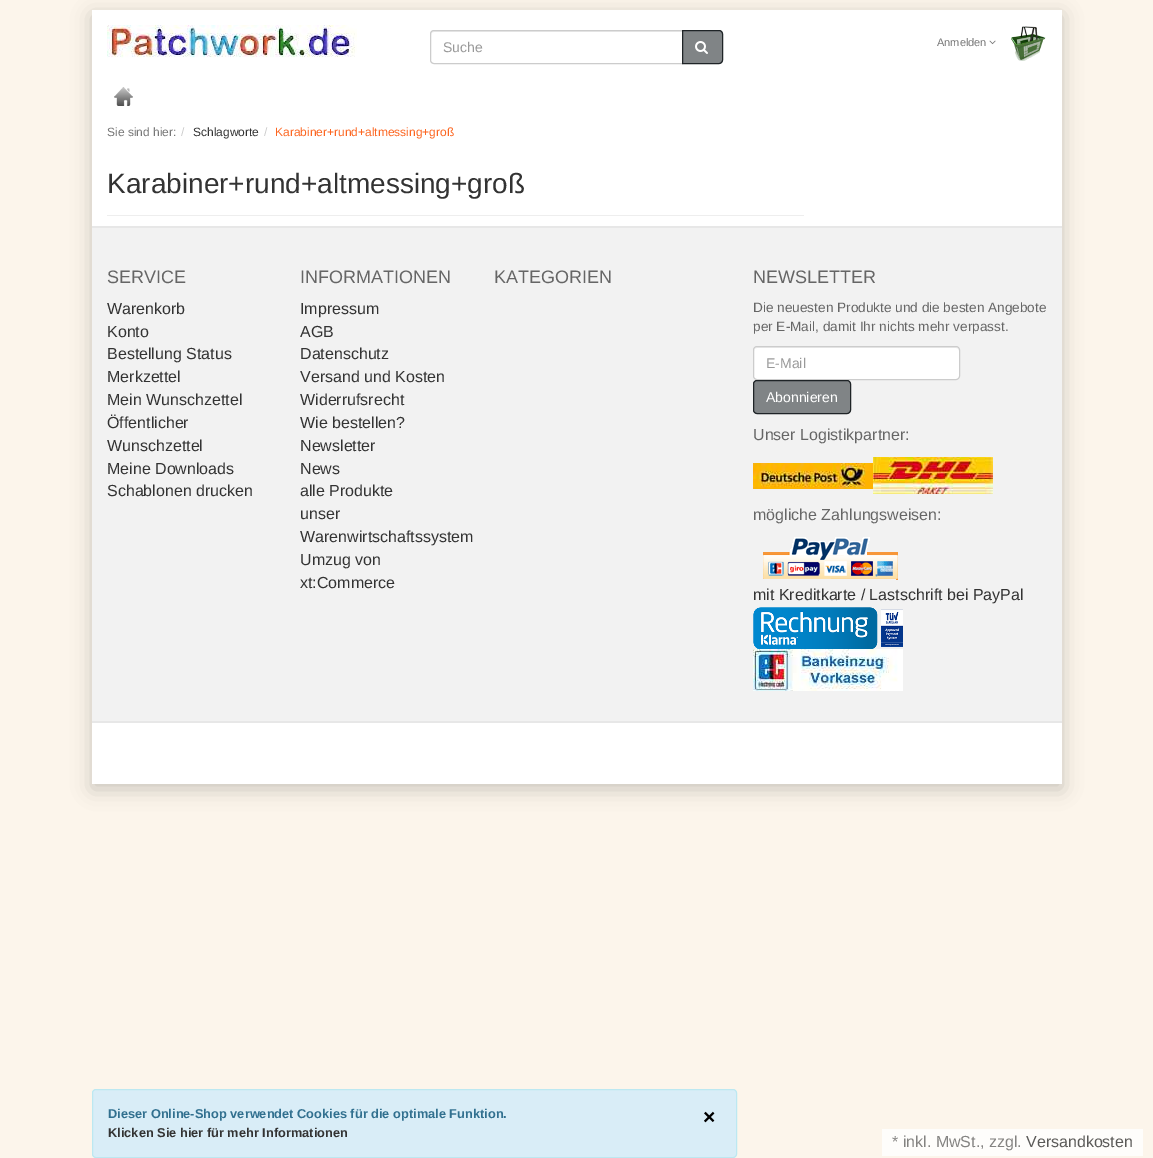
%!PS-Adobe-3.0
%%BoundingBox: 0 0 1153 1158
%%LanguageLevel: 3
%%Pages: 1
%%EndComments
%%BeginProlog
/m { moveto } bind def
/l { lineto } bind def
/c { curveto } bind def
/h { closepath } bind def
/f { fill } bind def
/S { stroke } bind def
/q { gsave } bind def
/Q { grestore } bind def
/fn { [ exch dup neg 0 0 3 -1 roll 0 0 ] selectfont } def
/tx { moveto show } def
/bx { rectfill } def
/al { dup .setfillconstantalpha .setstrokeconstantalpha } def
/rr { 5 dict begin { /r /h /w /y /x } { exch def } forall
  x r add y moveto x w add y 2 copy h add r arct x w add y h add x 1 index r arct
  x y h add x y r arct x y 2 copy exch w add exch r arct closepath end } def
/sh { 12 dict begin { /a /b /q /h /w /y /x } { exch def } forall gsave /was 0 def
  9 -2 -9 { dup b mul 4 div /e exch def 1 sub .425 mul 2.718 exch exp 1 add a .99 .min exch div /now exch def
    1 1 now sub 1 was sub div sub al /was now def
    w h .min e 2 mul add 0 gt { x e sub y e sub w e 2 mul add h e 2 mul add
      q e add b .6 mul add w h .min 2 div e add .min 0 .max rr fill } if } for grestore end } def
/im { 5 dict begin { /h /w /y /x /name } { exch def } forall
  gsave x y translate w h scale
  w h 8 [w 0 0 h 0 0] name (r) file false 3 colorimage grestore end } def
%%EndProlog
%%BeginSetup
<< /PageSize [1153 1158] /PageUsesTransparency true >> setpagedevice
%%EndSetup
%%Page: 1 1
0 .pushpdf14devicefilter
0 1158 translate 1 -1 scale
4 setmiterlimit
0.988 0.961 0.922 setrgbcolor
0 0 1153 1158 bx
0 setgray
92 15 970 774 0 10 0.2 sh
1 setgray
92 10 970 216 bx
(image0.raw) 107 25 250 33 im
0.925 setgray
434 32 m 682 32 l 682 31 l 434 31 l 432 31 431 33 431 35 c 431 33 432 32 434 32 c h f
0.8 setgray
434 30.5 m 682.5 30.5 l 682.5 63.5 l 434 63.5 l 432 63.5 430.5 62 430.5 60 c 430.5 34 l 430.5 32 432 30.5 434 30.5 c h S
/LiberationSans-Regular 14 fn
0.6 setgray
(Suche) 443 52 tx
0.502 0.518 0.525 setrgbcolor
682.5 30.5 m 719 30.5 l 721 30.5 722.5 32 722.5 34 c 722.5 60 l 722.5 62 721 63.5 719 63.5 c 682.5 63.5 l h q f Q
0.122 0.141 0.153 setrgbcolor
S
(image1.raw) 695 41 13 13 im
/LiberationSans-Regular 11 fn
0.467 setgray
(Anmelden) 937 46 tx
(image2.raw) 989 40 7 5 im
(image3.raw) 1011 26 35 35 im
(image4.raw) 114 87 19 19 im
/LiberationSans-Regular 12 fn
(Sie sind hier:) 107 136 tx
0.8 setgray
(/) 181 136 tx
0.2 setgray
(Schlagworte) 193 136 tx
0.8 setgray
(/) 264 136 tx
0.988 0.4 0.129 setrgbcolor
(Karabiner+rund+altmessing+groß) 275 136 tx
0.933 setgray
107 215 697 1 bx
/LiberationSans-Regular 28 fn
0.2 setgray
(Karabiner+rund+altmessing+groß) 107 193 tx
0.949 setgray
92 228 970 493 bx
0.906 setgray
92 226 970 2 bx
92 721 970 2 bx
/LiberationSans-Regular 18 fn
0.4 setgray
(SERVICE) 107 283 tx
/LiberationSans-Regular 16 fn
0.2 setgray
(Warenkorb) 107 314 tx
(Konto) 107 337 tx
(Bestellung Status) 107 359 tx
(Merkzettel) 107 382 tx
(Mein Wunschzettel) 107 405 tx
(Öffentlicher) 107 428 tx
(Wunschzettel) 107 451 tx
(Meine Downloads) 107 474 tx
(Schablonen drucken) 107 496 tx
/LiberationSans-Regular 18 fn
0.4 setgray
(INFORMATIONEN) 300 283 tx
/LiberationSans-Regular 16 fn
0.2 setgray
(Impressum) 300 314 tx
(AGB) 300 337 tx
(Datenschutz) 300 359 tx
(Versand und Kosten) 300 382 tx
(Widerrufsrecht) 300 405 tx
(Wie bestellen?) 300 428 tx
(Newsletter) 300 451 tx
(News) 300 474 tx
(alle Produkte) 300 496 tx
(unser) 300 519 tx
(Warenwirtschaftssystem) 300 542 tx
(Umzug von) 300 565 tx
(xt:Commerce) 300 588 tx
/LiberationSans-Regular 18 fn
0.4 setgray
(KATEGORIEN) 494 283 tx
(NEWSLETTER) 753 283 tx
/LiberationSans-Regular 13.6 fn
(Die neuesten Produkte und die besten Angebote) 753 312 tx
(per E-Mail, damit Ihr nichts mehr verpasst.) 753 331 tx
1 setgray
753 346 207 34 4 rr f
0.925 setgray
757 348 m 956 348 l 958 348 959 349 959 351 c 959 349 958 347 956 347 c 757 347 l 755 347 754 349 754 351 c 754 349 755 348 757 348 c h f
0.8 setgray
753.5 346.5 206 33 3.5 rr S
/LiberationSans-Regular 14 fn
0.6 setgray
(E-Mail) 766 368 tx
0.502 0.518 0.525 setrgbcolor
753.5 380.5 97 33 3.5 rr q f Q
0.122 0.141 0.153 setrgbcolor
S
1 setgray
(Abonnieren) 766 402 tx
/LiberationSans-Regular 16 fn
0.4 setgray
(Unser Logistikpartner:) 753 440 tx
(image5.raw) 753 463 120 26 im
(image6.raw) 873 457 120 37 im
(mögliche Zahlungsweisen:) 753 520 tx
(image7.raw) 763 537 135 43 im
0.2 setgray
(mit Kreditkarte / Lastschrift bei PayPal) 753 600 tx
(image8.raw) 753 607 150 42 im
(image9.raw) 753 649 150 42 im
0.996 0.992 0.984 setrgbcolor
882 1129 261 27 bx
0.518 0.514 0.506 setrgbcolor
(* inkl. MwSt., zzgl.) 892 1147 tx
0.357 0.353 0.345 setrgbcolor
(Versandkosten) 1026 1147 tx
1 setgray
92 723 970 61 bx
0.851 0.929 0.969 setrgbcolor
92.5 1089.5 644 68 3.5 rr q f Q
0.737 0.91 0.945 setrgbcolor
S
/LiberationSans-Bold 12.8 fn
0.192 0.439 0.561 setrgbcolor
(Dieser Online-Shop verwendet Cookies für die optimale Funktion.) 108 1118 tx
/LiberationSans-Bold 21 fn
0 setgray
(×) 703 1124 tx
/LiberationSans-Bold 12.8 fn
0.2 setgray
(Klicken Sie hier für mehr Informationen) 108 1137 tx
.poppdf14devicefilter showpage
%%EOF
